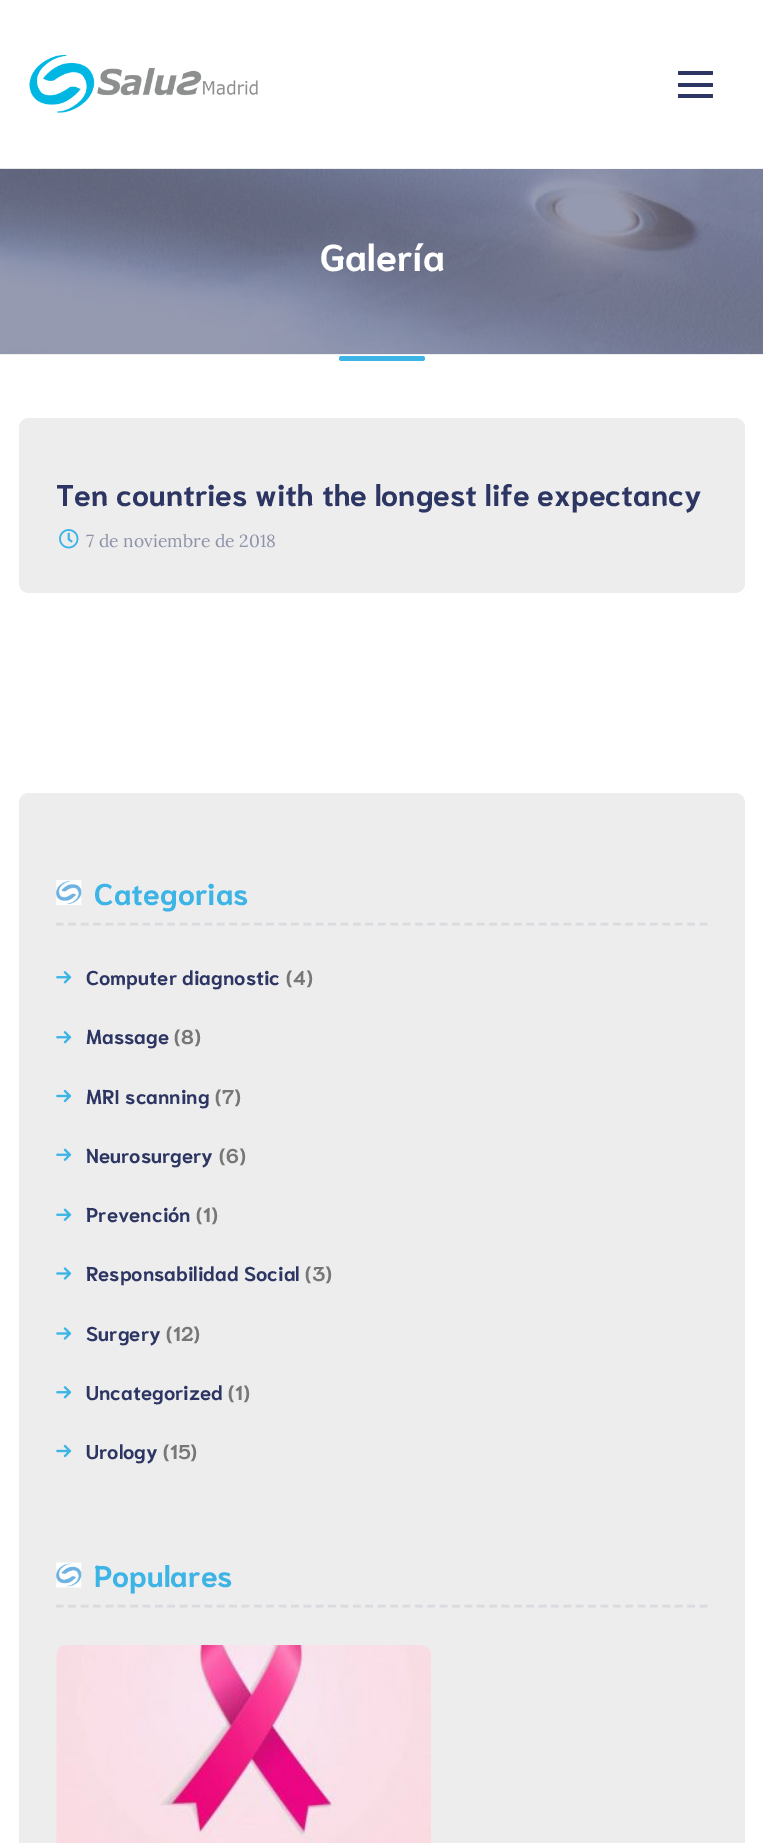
%!PS-Adobe-3.0
%%BoundingBox: 0 0 763 1843
%%LanguageLevel: 3
%%Pages: 1
%%EndComments
%%BeginProlog
/m { moveto } bind def
/l { lineto } bind def
/f { fill } bind def
/S { stroke } bind def
/w { setlinewidth } bind def
/fn { [ exch dup neg 0 0 3 -1 roll 0 0 ] selectfont } def
/tx { moveto show } def
/bx { rectfill } def
/rr { 5 dict begin { /r /h /w /y /x } { exch def } forall
  x r add y moveto x w add y 2 copy h add r arct x w add y h add x 1 index r arct
  x y h add x y r arct x y 2 copy exch w add exch r arct closepath end } def
/im { 5 dict begin { /h /w /y /x /name } { exch def } forall
  gsave x y translate w h scale
  w h 8 [w 0 0 h 0 0] name (r) file false 3 colorimage grestore end } def
%%EndProlog
%%BeginSetup
<< /PageSize [763 1843] >> setpagedevice
%%EndSetup
%%Page: 1 1
0 1843 translate 1 -1 scale
4 setmiterlimit
1 setgray
0 0 763 1843 bx
(image0.raw) 29 55 229 58 im
0.176 0.212 0.388 setrgbcolor
678 71 35 4 1 rr f
678 83 35 4 1 rr f
678 94 35 4 1 rr f
(image1.raw) 0 168 763 186 im
0.933 setgray
0 354 763 1 bx
/Niramit-Bold 37.5 fn
1 setgray
(Galería) 320 271 tx
0.235 0.706 0.898 setrgbcolor
339 356 86 5 2.5 rr f
0.929 setgray
19 418 726 175 10 rr f
/Niramit-Bold 30 fn
0.176 0.212 0.388 setrgbcolor
(Ten countries with the longest life expectancy) 56 506 tx
(image2.raw) 59 529 20 20 im
/Lora-Regular 17.5 fn
0.553 0.573 0.659 setrgbcolor
(7 de noviembre de 2018) 86 547 tx
0.929 setgray
19 793 726 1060 10 rr f
0.855 0.859 0.875 setrgbcolor
2.5 w
[7.5 4.88] 0 setdash
56 924 m 707.5 924 l S
(image3.raw) 56 880 26 25 im
/Niramit-Bold 30 fn
0.235 0.706 0.898 setrgbcolor
(Categorias) 94 905 tx
(image4.raw) 56 971 16 13 im
/Niramit-Bold 20 fn
0.176 0.212 0.388 setrgbcolor
(Computer diagnostic) 86 985 tx
0.467 setgray
(\(4\)) 286 985 tx
(image4.raw) 56 1031 16 13 im
0.176 0.212 0.388 setrgbcolor
(Massage) 86 1044 tx
0.467 setgray
(\(8\)) 174 1044 tx
(image5.raw) 56 1089 16 14 im
0.176 0.212 0.388 setrgbcolor
(MRI scanning) 86 1104 tx
0.467 setgray
(\(7\)) 215 1104 tx
(image6.raw) 56 1148 16 13 im
0.176 0.212 0.388 setrgbcolor
(Neurosurgery) 86 1163 tx
0.467 setgray
(\(6\)) 219 1163 tx
(image6.raw) 56 1208 16 13 im
0.176 0.212 0.388 setrgbcolor
(Prevención) 86 1222 tx
0.467 setgray
(\(1\)) 196 1222 tx
(image7.raw) 56 1267 16 13 im
0.176 0.212 0.388 setrgbcolor
(Responsabilidad Social) 86 1281 tx
0.467 setgray
(\(3\)) 305 1281 tx
(image7.raw) 56 1327 16 13 im
0.176 0.212 0.388 setrgbcolor
(Surgery) 86 1341 tx
0.467 setgray
(\(12\)) 166 1341 tx
(image4.raw) 56 1386 16 13 im
0.176 0.212 0.388 setrgbcolor
(Uncategorized) 86 1400 tx
0.467 setgray
(\(1\)) 228 1400 tx
(image5.raw) 56 1444 16 14 im
0.176 0.212 0.388 setrgbcolor
(Urology) 86 1459 tx
0.467 setgray
(\(15\)) 163 1459 tx
0.855 0.859 0.875 setrgbcolor
56 1606 m 707.5 1606 l S
(image8.raw) 56 1562 26 26 im
/Niramit-Bold 30 fn
0.235 0.706 0.898 setrgbcolor
(Populares) 94 1587 tx
(image9.raw) 56 1645 375 198 im
showpage
%%EOF
